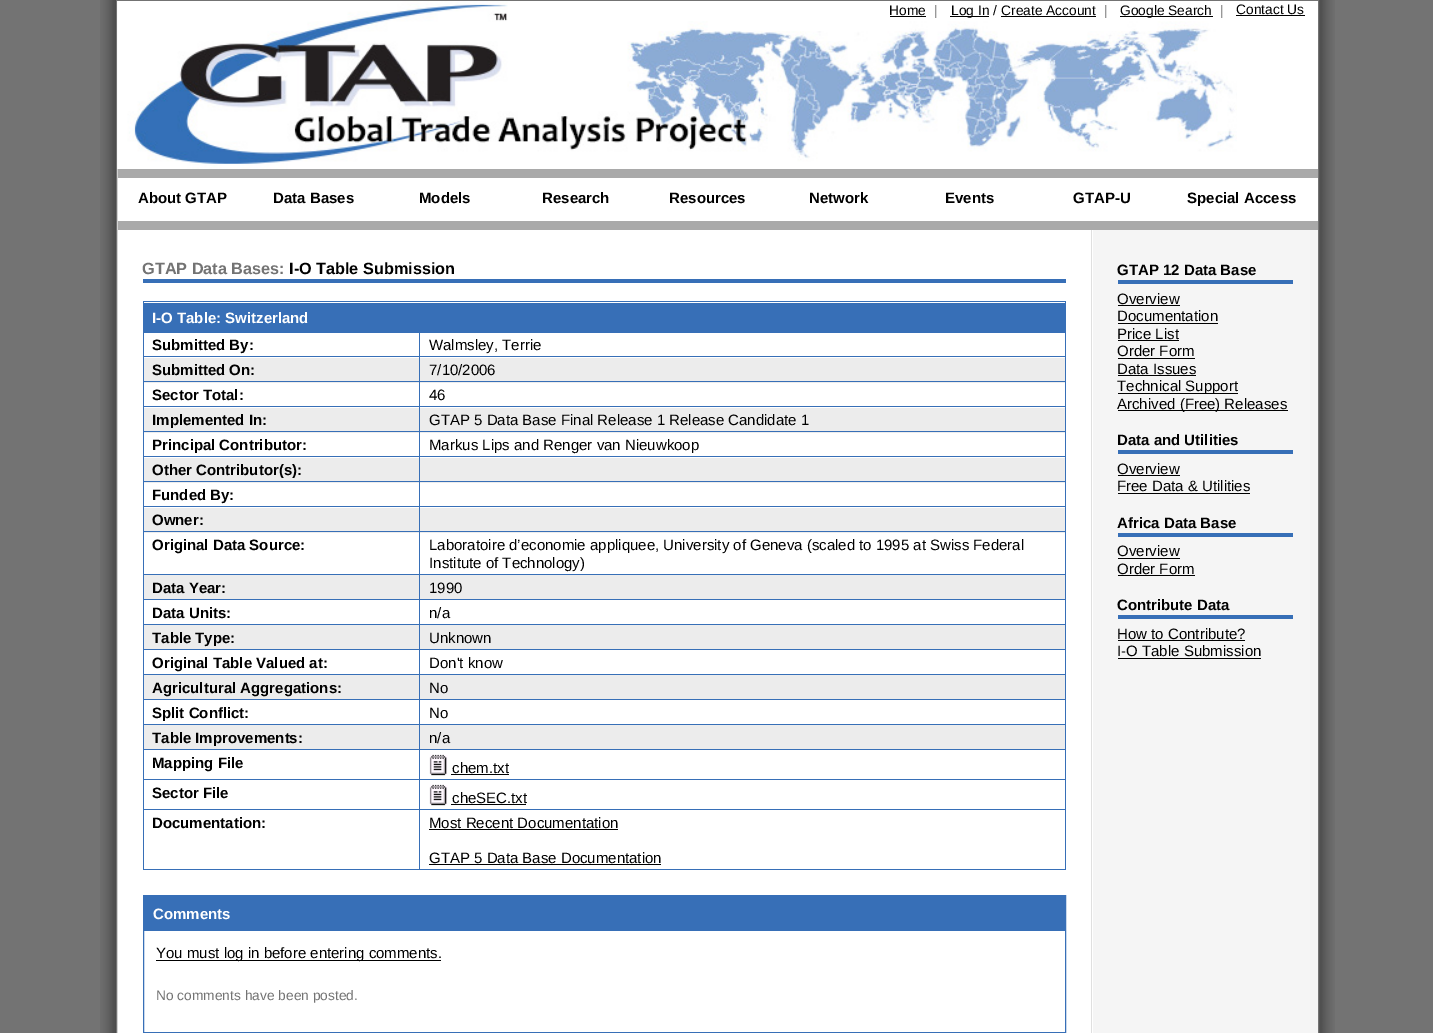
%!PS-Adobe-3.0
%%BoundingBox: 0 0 1433 1033
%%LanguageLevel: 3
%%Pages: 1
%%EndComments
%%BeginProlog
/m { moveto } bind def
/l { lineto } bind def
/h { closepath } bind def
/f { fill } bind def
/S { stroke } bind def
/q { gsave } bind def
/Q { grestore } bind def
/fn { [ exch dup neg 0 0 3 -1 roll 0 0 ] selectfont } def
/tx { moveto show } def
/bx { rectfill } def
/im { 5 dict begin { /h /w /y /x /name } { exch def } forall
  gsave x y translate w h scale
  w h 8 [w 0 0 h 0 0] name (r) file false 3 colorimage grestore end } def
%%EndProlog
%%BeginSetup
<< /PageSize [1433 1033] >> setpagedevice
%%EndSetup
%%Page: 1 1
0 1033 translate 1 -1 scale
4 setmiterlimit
0.451 setgray
0 0 1433 1033 bx
(image0.raw) 100 0 1235 1033 im
0.961 setgray
116.5 0.5 m 1318.5 0.5 l 1318.5 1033.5 l 116.5 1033.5 l h q f Q
0.451 setgray
S
1 setgray
118 1 1200 168 bx
(image1.raw) 117 1 1120 168 im
/LiberationSans-Regular 13.75 fn
0 setgray
(Home) 889 15 tx
890 16 36 1 bx
0.451 setgray
(|) 934 15 tx
0 setgray
950 16 39 1 bx
(Log In) 951 15 tx
(/) 993 15 tx
(Create Account) 1001 15 tx
1001 16 95 1 bx
0.451 setgray
(|) 1104 15 tx
0 setgray
1120 16 93 1 bx
(Google Search) 1120 15 tx
0.451 setgray
(|) 1220 15 tx
0 setgray
(Contact Us) 1236 14 tx
1236 15 69 1 bx
0.663 setgray
118 169 1200 61 bx
1 setgray
118 178 1200 43 bx
/LiberationSans-Bold 15 fn
0 setgray
(About GTAP) 138 203 tx
(Data Bases) 273 203 tx
(Models) 419 203 tx
(Research) 542 203 tx
(Resources) 669 203 tx
(Network) 809 203 tx
(Events) 945 203 tx
(GTAP-U) 1073 203 tx
(Special Access) 1187 203 tx
1 setgray
118 230 975 803 bx
0.878 setgray
1091 230 1 803 bx
0.216 0.435 0.718 setrgbcolor
143 279 923 4 bx
/LiberationSans-Bold 16.25 fn
0.451 setgray
(GTAP Data Bases:) 142 274 tx
0 setgray
(I-O Table Submission) 289 274 tx
0.216 0.435 0.718 setrgbcolor
144 303 921 30 bx
143 301 923 1 bx
419 356 647 1 bx
0.925 setgray
420 358 645 25 bx
0.216 0.435 0.718 setrgbcolor
419 381 647 1 bx
419 406 647 1 bx
0.925 setgray
420 408 645 25 bx
0.216 0.435 0.718 setrgbcolor
419 431 647 1 bx
419 456 647 1 bx
0.925 setgray
420 458 645 25 bx
0.216 0.435 0.718 setrgbcolor
419 481 647 1 bx
419 506 647 1 bx
0.925 setgray
420 508 645 25 bx
0.216 0.435 0.718 setrgbcolor
419 531 647 1 bx
419 574 647 1 bx
419 599 647 1 bx
419 624 647 1 bx
419 649 647 1 bx
419 674 647 1 bx
419 699 647 1 bx
419 724 647 1 bx
419 749 647 1 bx
419 779 647 1 bx
419 809 647 1 bx
1065 809 1 61 bx
1065 779 1 31 bx
1065 749 1 31 bx
1065 724 1 26 bx
1065 699 1 26 bx
1065 674 1 26 bx
1065 649 1 26 bx
1065 624 1 26 bx
1065 599 1 26 bx
1065 574 1 26 bx
1065 531 1 44 bx
1065 506 1 27 bx
1065 481 1 27 bx
1065 456 1 27 bx
1065 431 1 27 bx
1065 406 1 27 bx
1065 381 1 27 bx
1065 356 1 27 bx
1065 331 1 27 bx
1065 301 1 32 bx
0.925 setgray
144 358 275 25 bx
144 408 275 25 bx
144 458 275 25 bx
144 508 275 25 bx
0.216 0.435 0.718 setrgbcolor
419 869 647 1 bx
419 809 1 61 bx
143 809 277 1 bx
419 779 1 31 bx
143 779 277 1 bx
419 749 1 31 bx
143 749 277 1 bx
419 724 1 26 bx
143 724 277 1 bx
419 699 1 26 bx
143 699 277 1 bx
419 674 1 26 bx
143 674 277 1 bx
419 649 1 26 bx
143 649 277 1 bx
419 624 1 26 bx
143 624 277 1 bx
419 599 1 26 bx
143 599 277 1 bx
419 574 1 26 bx
143 574 277 1 bx
419 531 1 44 bx
143 531 277 1 bx
419 506 1 27 bx
143 506 277 1 bx
419 481 1 27 bx
143 481 277 1 bx
419 456 1 27 bx
143 456 277 1 bx
419 431 1 27 bx
143 431 277 1 bx
419 406 1 27 bx
143 406 277 1 bx
419 381 1 27 bx
143 381 277 1 bx
419 356 1 27 bx
143 356 277 1 bx
143 869 277 1 bx
143 809 1 61 bx
143 779 1 31 bx
143 749 1 31 bx
143 724 1 26 bx
143 699 1 26 bx
143 674 1 26 bx
143 649 1 26 bx
143 624 1 26 bx
143 599 1 26 bx
143 574 1 26 bx
143 531 1 44 bx
143 506 1 27 bx
143 481 1 27 bx
143 456 1 27 bx
143 431 1 27 bx
143 406 1 27 bx
143 381 1 27 bx
143 331 1 52 bx
143 301 1 32 bx
/LiberationSans-Bold 15 fn
1 setgray
(I-O Table: Switzerland) 152 323 tx
0 setgray
(Submitted By:) 152 350 tx
0.216 0.435 0.718 setrgbcolor
419 331 1 27 bx
/LiberationSans-Regular 15 fn
0 setgray
(Walmsley, Terrie) 429 350 tx
/LiberationSans-Bold 15 fn
(Submitted On:) 152 375 tx
/LiberationSans-Regular 15 fn
(7/10/2006) 429 375 tx
/LiberationSans-Bold 15 fn
(Sector Total:) 152 400 tx
/LiberationSans-Regular 15 fn
(46) 429 400 tx
/LiberationSans-Bold 15 fn
(Implemented In:) 152 425 tx
/LiberationSans-Regular 15 fn
(GTAP 5 Data Base Final Release 1 Release Candidate 1) 429 425 tx
/LiberationSans-Bold 15 fn
(Principal Contributor:) 152 450 tx
/LiberationSans-Regular 15 fn
(Markus Lips and Renger van Nieuwkoop) 429 450 tx
/LiberationSans-Bold 15 fn
(Other Contributor\(s\):) 152 475 tx
(Funded By:) 152 500 tx
(Owner:) 152 525 tx
(Original Data Source:) 152 550 tx
/LiberationSans-Regular 15 fn
(Laboratoire d’economie appliquee, University of Geneva \(scaled to 1995 at Swiss Federal) 429 550 tx
(Institute of Technology\)) 429 568 tx
0.925 setgray
144 575 275 24 bx
/LiberationSans-Bold 15 fn
0 setgray
(Data Year:) 152 593 tx
0.925 setgray
420 575 645 24 bx
/LiberationSans-Regular 15 fn
0 setgray
(1990) 429 593 tx
/LiberationSans-Bold 15 fn
(Data Units:) 152 618 tx
/LiberationSans-Regular 15 fn
(n/a) 429 618 tx
0.925 setgray
144 625 275 24 bx
/LiberationSans-Bold 15 fn
0 setgray
(Table Type:) 152 643 tx
0.925 setgray
420 625 645 24 bx
/LiberationSans-Regular 15 fn
0 setgray
(Unknown) 429 643 tx
/LiberationSans-Bold 15 fn
(Original Table Valued at:) 152 668 tx
/LiberationSans-Regular 15 fn
(Don't know) 429 668 tx
0.925 setgray
144 675 275 24 bx
/LiberationSans-Bold 15 fn
0 setgray
(Agricultural Aggregations:) 152 693 tx
0.925 setgray
420 675 645 24 bx
/LiberationSans-Regular 15 fn
0 setgray
(No) 429 693 tx
/LiberationSans-Bold 15 fn
(Split Conflict:) 152 718 tx
/LiberationSans-Regular 15 fn
(No) 429 718 tx
0.925 setgray
144 725 275 24 bx
/LiberationSans-Bold 15 fn
0 setgray
(Table Improvements:) 152 743 tx
0.925 setgray
420 725 645 24 bx
/LiberationSans-Regular 15 fn
0 setgray
(n/a) 429 743 tx
/LiberationSans-Bold 15 fn
(Mapping File) 152 768 tx
(image2.raw) 429 754 19 22 im
/LiberationSans-Regular 15 fn
(chem.txt) 452 773 tx
451 774 58 1 bx
/LiberationSans-Bold 15 fn
(Sector File) 152 798 tx
(image2.raw) 429 784 19 22 im
/LiberationSans-Regular 15 fn
(cheSEC.txt) 452 803 tx
451 804 75 1 bx
/LiberationSans-Bold 15 fn
(Documentation:) 152 828 tx
/LiberationSans-Regular 15 fn
(Most Recent Documentation) 429 828 tx
429 829 189 1 bx
(GTAP 5 Data Base Documentation) 429 863 tx
429 864 232 1 bx
0.216 0.435 0.718 setrgbcolor
143.5 895.5 922 137 rectstroke
144 896 921 35 bx
/LiberationSans-Bold 15 fn
1 setgray
(Comments) 153 919 tx
0 setgray
156 960 285 1 bx
/LiberationSans-Regular 15 fn
(You must log in before entering comments.) 156 958 tx
/LiberationSans-Regular 13.75 fn
0.451 setgray
(No comments have been posted.) 156 1000 tx
0.216 0.435 0.718 setrgbcolor
1118 280 175 4 bx
/LiberationSans-Bold 15 fn
0 setgray
(GTAP 12 Data Base) 1117 275 tx
/LiberationSans-Regular 15 fn
(Overview) 1117 304 tx
1118 305 62 1 bx
(Documentation) 1117 321 tx
1118 323 100 1 bx
(Price List) 1117 339 tx
1118 340 61 1 bx
(Order Form) 1117 356 tx
1118 358 77 1 bx
(Data Issues) 1117 374 tx
1118 375 78 1 bx
1118 393 120 1 bx
(Technical Support) 1117 391 tx
1118 410 170 1 bx
(Archived \(Free\) Releases) 1117 409 tx
0.216 0.435 0.718 setrgbcolor
1118 450 175 4 bx
/LiberationSans-Bold 15 fn
0 setgray
(Data and Utilities) 1117 445 tx
/LiberationSans-Regular 15 fn
(Overview) 1117 474 tx
1118 475 62 1 bx
(Free Data & Utilities) 1117 491 tx
1118 493 132 1 bx
0.216 0.435 0.718 setrgbcolor
1118 533 175 4 bx
/LiberationSans-Bold 15 fn
0 setgray
(Africa Data Base) 1117 528 tx
/LiberationSans-Regular 15 fn
(Overview) 1117 556 tx
1118 558 62 1 bx
(Order Form) 1117 574 tx
1118 575 77 1 bx
0.216 0.435 0.718 setrgbcolor
1118 615 175 4 bx
/LiberationSans-Bold 15 fn
0 setgray
(Contribute Data) 1117 610 tx
/LiberationSans-Regular 15 fn
(How to Contribute?) 1117 639 tx
1118 640 127 1 bx
(I-O Table Submission) 1117 656 tx
1118 658 143 1 bx
showpage
%%EOF
